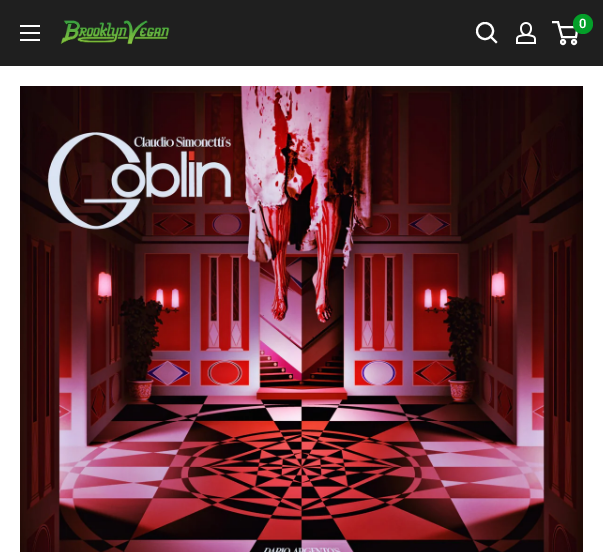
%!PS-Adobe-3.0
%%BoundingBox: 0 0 603 552
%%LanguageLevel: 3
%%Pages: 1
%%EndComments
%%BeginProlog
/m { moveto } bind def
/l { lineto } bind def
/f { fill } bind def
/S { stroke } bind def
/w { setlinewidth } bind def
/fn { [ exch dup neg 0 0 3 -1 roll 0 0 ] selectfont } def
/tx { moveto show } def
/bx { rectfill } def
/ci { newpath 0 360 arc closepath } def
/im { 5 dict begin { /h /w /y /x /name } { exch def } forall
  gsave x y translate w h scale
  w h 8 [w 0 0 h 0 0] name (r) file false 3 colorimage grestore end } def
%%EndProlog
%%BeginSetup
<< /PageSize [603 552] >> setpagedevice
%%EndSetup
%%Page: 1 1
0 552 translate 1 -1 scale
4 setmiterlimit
1 setgray
0 0 603 552 bx
0.122 setgray
0 0 603 66 bx
(image0.raw) 20 25 20 16 im
(image1.raw) 60 20 110 25 im
1 setgray
2.1 w
2 setlinecap
496 42 m 490.5 36.5 l S
0 setlinecap
485 31 8 ci S
(image2.raw) 516 22 20 22 im
2 w
563 42 2 ci S
574 42 2 ci S
559.5 27 m 577.5 27 l 576 37 l 562 37 l 558 22 l 552 22 l S
0.016 0.624 0.161 setrgbcolor
583 24 10 ci f
/Roboto-SemiBold 13 fn
1 setgray
(0) 579 28 tx
(image3.raw) 20 86 563 466 im
showpage
%%EOF
